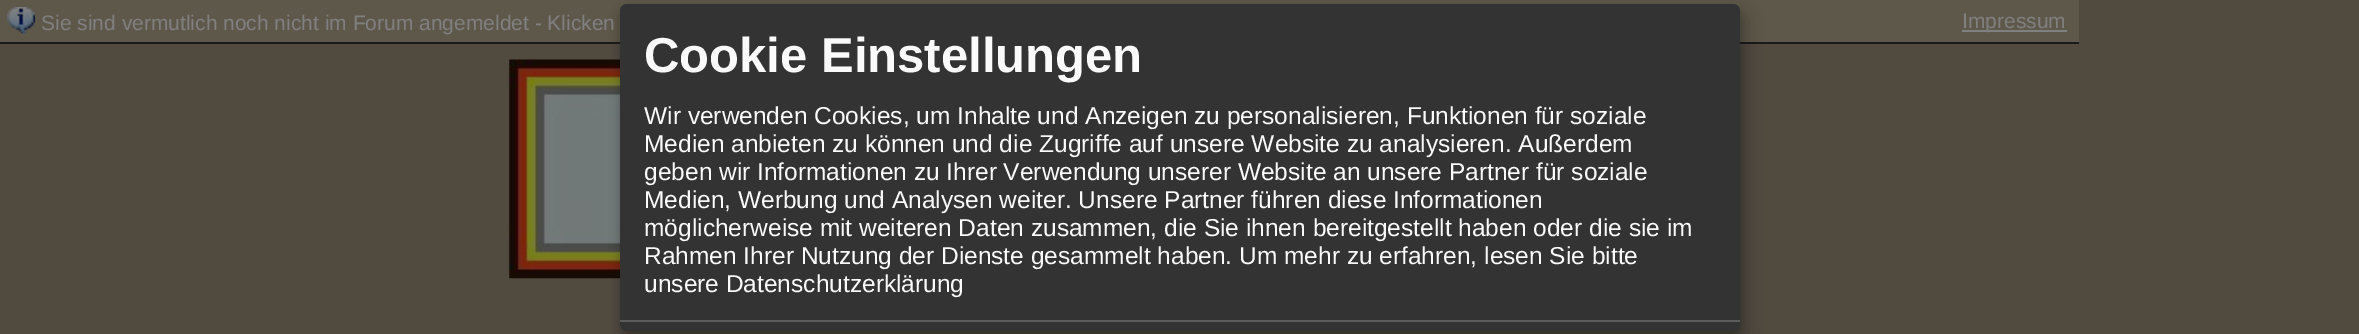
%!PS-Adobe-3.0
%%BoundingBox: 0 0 2359 334
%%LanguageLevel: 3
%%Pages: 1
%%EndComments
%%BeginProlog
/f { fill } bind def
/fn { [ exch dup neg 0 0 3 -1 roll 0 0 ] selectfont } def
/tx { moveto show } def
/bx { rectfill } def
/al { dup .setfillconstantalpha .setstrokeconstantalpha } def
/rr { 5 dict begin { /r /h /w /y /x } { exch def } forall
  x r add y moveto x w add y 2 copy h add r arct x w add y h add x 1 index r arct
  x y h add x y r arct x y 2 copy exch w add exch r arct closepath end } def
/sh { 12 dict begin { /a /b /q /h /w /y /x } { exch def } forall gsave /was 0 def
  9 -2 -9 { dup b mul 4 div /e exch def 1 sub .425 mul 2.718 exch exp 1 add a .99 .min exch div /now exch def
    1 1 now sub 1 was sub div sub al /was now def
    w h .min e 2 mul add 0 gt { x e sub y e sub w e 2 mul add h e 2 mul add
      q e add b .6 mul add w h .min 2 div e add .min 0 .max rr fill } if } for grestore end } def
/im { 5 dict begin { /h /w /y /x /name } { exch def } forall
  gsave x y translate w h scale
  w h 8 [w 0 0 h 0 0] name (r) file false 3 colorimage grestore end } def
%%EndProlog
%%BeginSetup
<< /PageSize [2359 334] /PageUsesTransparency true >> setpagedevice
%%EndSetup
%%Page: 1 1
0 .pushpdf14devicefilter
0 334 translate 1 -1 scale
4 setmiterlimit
0.318 0.294 0.247 setrgbcolor
0 0 2359 334 bx
0.369 0.345 0.29 setrgbcolor
0 0 2079 42 bx
0.102 setgray
0 42 2079 2 bx
(image0.raw) 7 7 28 27 im
/LiberationSans-Regular 21 fn
0.502 setgray
(Sie sind vermutlich noch nicht im Forum angemeldet - Klicken) 41 30 tx
1962 30 105 2 bx
(Impressum) 1962 28 tx
(image1.raw) 509 59 111 220 im
0 setgray
628 12 1120 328 7 9 0.19 sh
620 11 1120 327 7 5 0.2 sh
0.2 setgray
620 4 1120 327 7 rr f
0.361 setgray
620 320 1120 2 bx
/LiberationSans-Bold 49 fn
0.98 setgray
(Cookie Einstellungen) 644 72 tx
/LiberationSans-Regular 24.5 fn
(Wir verwenden Cookies, um Inhalte und Anzeigen zu personalisieren, Funktionen für soziale) 644 124 tx
(Medien anbieten zu können und die Zugriffe auf unsere Website zu analysieren. Außerdem) 644 152 tx
(geben wir Informationen zu Ihrer Verwendung unserer Website an unsere Partner für soziale) 644 180 tx
(Medien, Werbung und Analysen weiter. Unsere Partner führen diese Informationen) 644 208 tx
(möglicherweise mit weiteren Daten zusammen, die Sie ihnen bereitgestellt haben oder die sie im) 644 236 tx
(Rahmen Ihrer Nutzung der Dienste gesammelt haben. Um mehr zu erfahren, lesen Sie bitte) 644 264 tx
(unsere Datenschutzerklärung) 644 292 tx
.poppdf14devicefilter showpage
%%EOF
